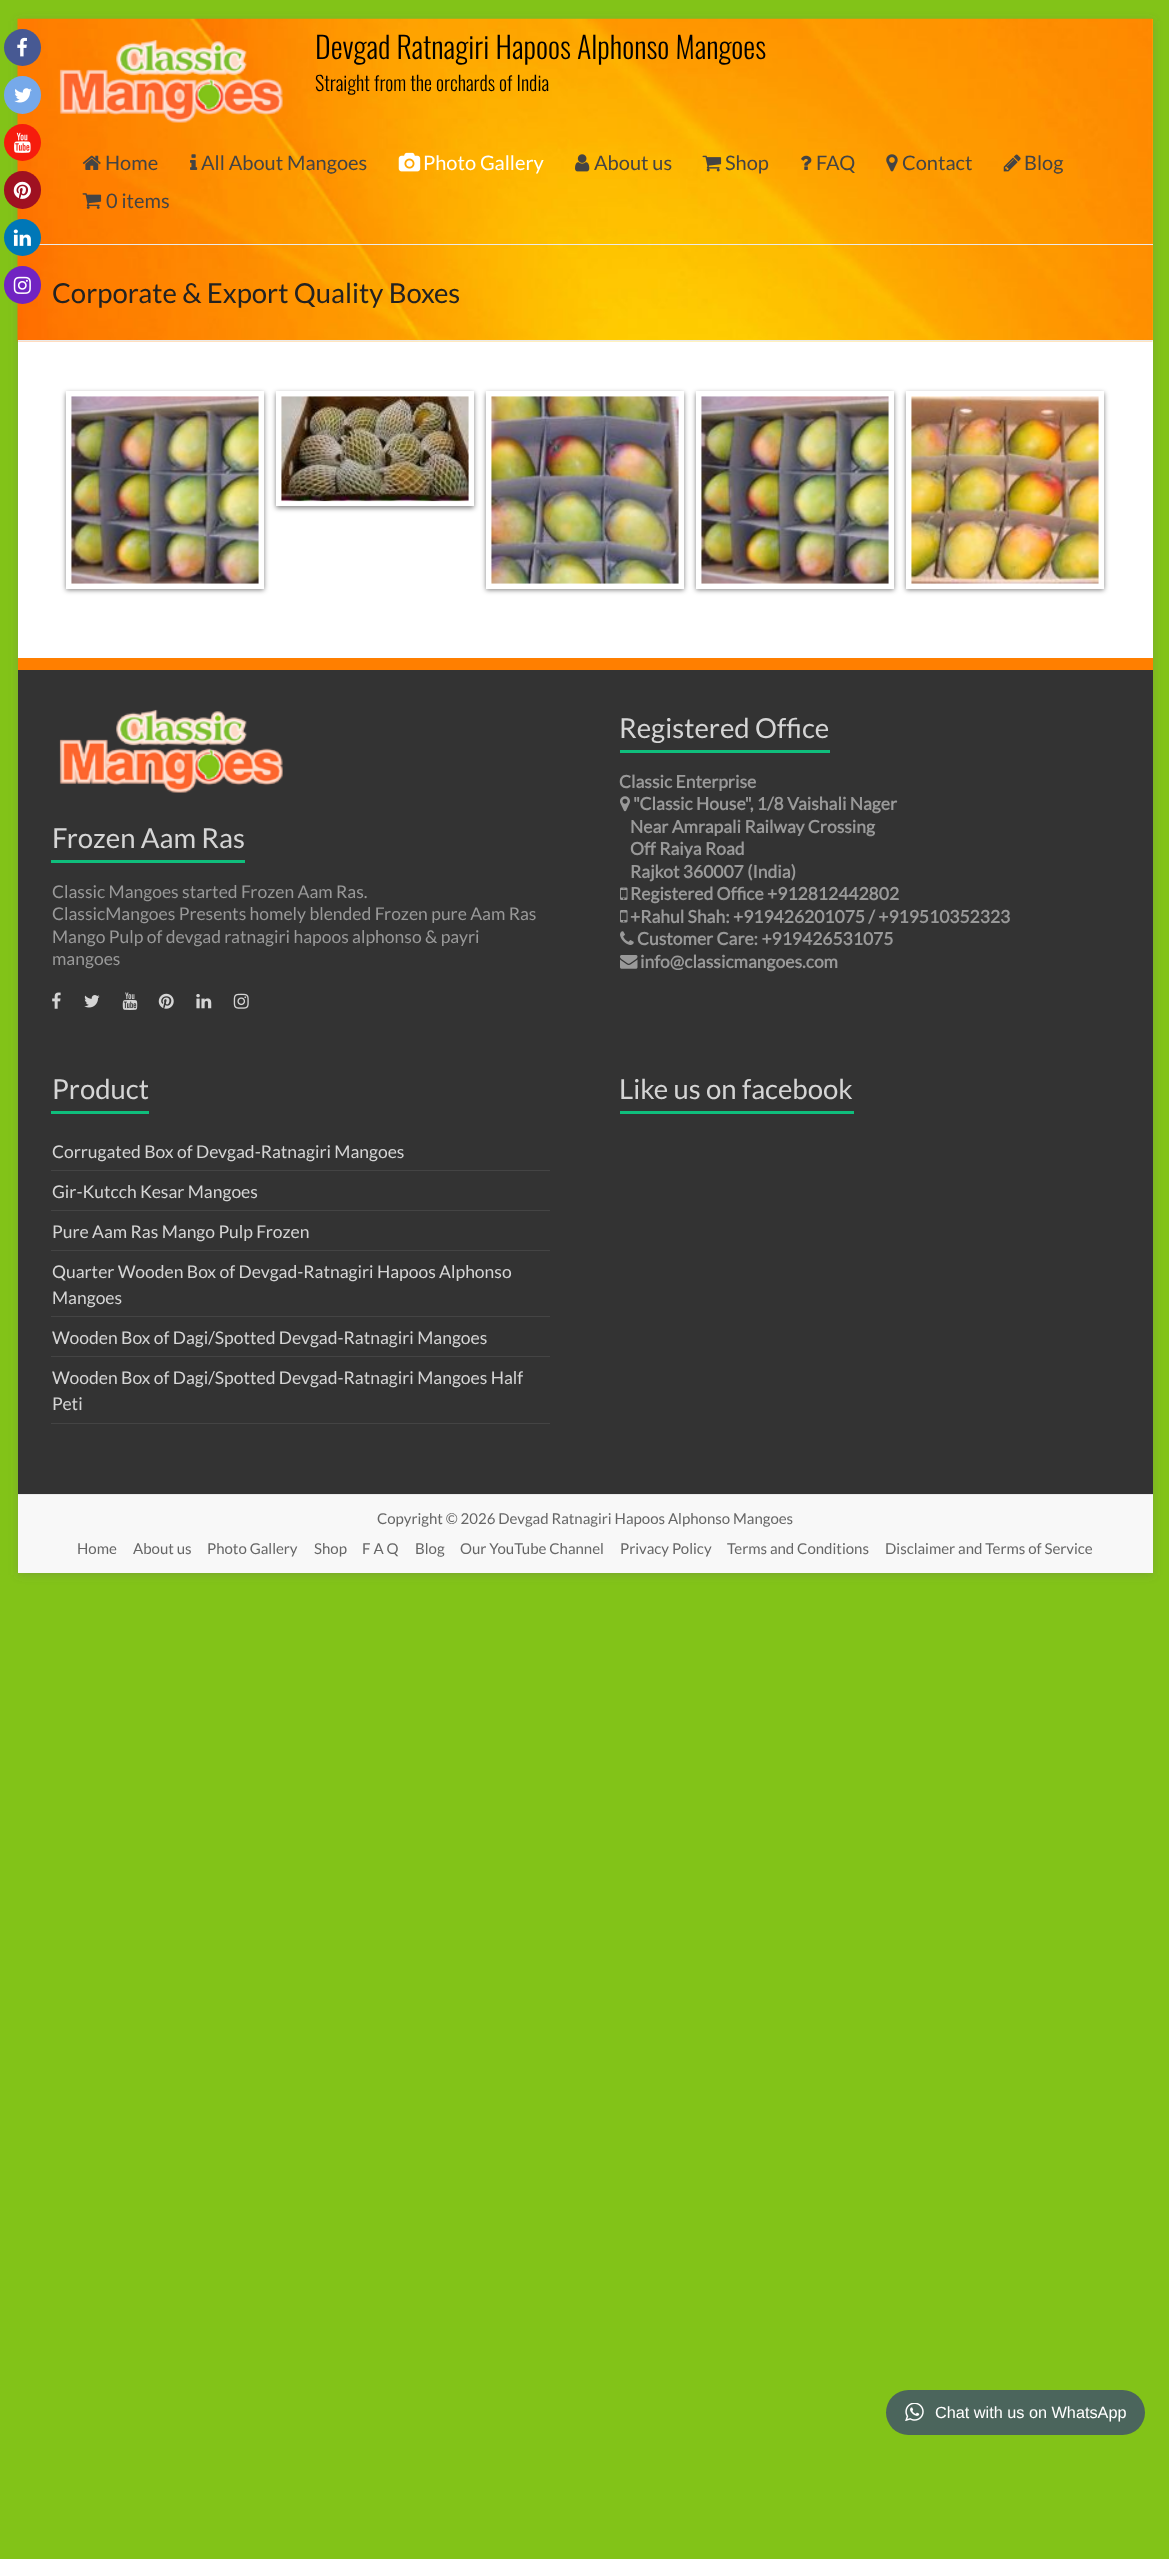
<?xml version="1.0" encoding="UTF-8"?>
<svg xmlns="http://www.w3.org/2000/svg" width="1169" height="2559">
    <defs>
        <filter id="blur1" x="-50%" y="-200%" width="200%" height="500%"><feGaussianBlur stdDeviation="4"/></filter>
        <filter id="blur2" x="-50%" y="-200%" width="200%" height="500%"><feGaussianBlur stdDeviation="2.5"/></filter>
    </defs>
    <rect width="100%" height="100%" fill="#82C318"/>
    <rect x="18" y="21" width="1135" height="1554" fill="#646464" fill-opacity="0.3" filter="url(#blur1)"/>
    <rect x="18" y="341" width="1135" height="317" fill="#FFFFFF"/>
    <rect x="1152" y="19" width="1" height="321" fill="#FFA500"/>
    <image x="17" y="18" width="1136" height="324" href="img_07.png"/>
    <circle cx="22.5" cy="47.5" r="18.5" fill="#475993"/>
    <image x="17" y="37" width="10" height="20" href="img_01.png"/>
    <rect x="4" y="76" width="37" height="38" rx="18.5" fill="#76A9EA"/>
    <image x="14" y="88" width="18" height="15" href="img_02.png"/>
    <circle cx="22.5" cy="142.5" r="18.5" fill="#F61C0D"/>
    <image x="14" y="132" width="17" height="21" href="img_03.png"/>
    <rect x="4" y="171" width="37" height="38" rx="18.5" fill="#9F1121"/>
    <image x="13" y="181" width="18" height="18" href="img_04.png"/>
    <rect x="39" y="244" width="1114" height="1" fill="#EAEAEA"/>
    <circle cx="22.5" cy="237.5" r="18.5" fill="#0077B7"/>
    <image x="13" y="229" width="18" height="17" href="img_05.png"/>
    <rect x="4" y="266" width="37" height="38" rx="18.5" fill="#7124C2"/>
    <image x="13" y="276" width="18" height="18" href="img_06.png"/>
    <image x="59" y="39" width="224" height="84" href="img_08.png"/>
    <text x="315" y="59" font-family="Oswald" font-size="30" font-weight="300" fill="#000000">Devgad Ratnagiri Hapoos Alphonso Mangoes</text>
    <text x="315" y="91" font-family="Oswald" font-size="20" font-weight="300" fill="#000000">Straight from the orchards of India</text>
    <image x="82" y="155" width="19" height="15" href="img_09.png"/>
    <text x="105" y="170" font-family="Lato" font-size="20" fill="#444444">Home</text>
    <image x="190" y="154" width="8" height="16" href="img_10.png"/>
    <text x="201" y="170" font-family="Lato" font-size="20" fill="#444444">All About Mangoes</text>
    <image x="398" y="152" width="23" height="20" href="img_11.png"/>
    <text x="423" y="170" font-family="Lato" font-size="20" fill="#FFFFFF">Photo Gallery</text>
    <image x="575" y="154" width="15" height="18" href="img_12.png"/>
    <text x="594" y="170" font-family="Lato" font-size="20" fill="#444444">About us</text>
    <image x="702" y="155" width="20" height="17" href="img_13.png"/>
    <text x="725" y="170" font-family="Lato" font-size="20" fill="#444444">Shop</text>
    <image x="801" y="155" width="11" height="15" href="img_14.png"/>
    <text x="816" y="170" font-family="Lato" font-size="20" fill="#444444">FAQ</text>
    <image x="886" y="154" width="12" height="18" href="img_15.png"/>
    <text x="902" y="170" font-family="Lato" font-size="20" fill="#444444">Contact</text>
    <image x="1003" y="154" width="18" height="18" href="img_16.png"/>
    <text x="1024" y="170" font-family="Lato" font-size="20" fill="#444444">Blog</text>
    <image x="82" y="193" width="20" height="16" href="img_17.png"/>
    <text x="106" y="208" font-family="Lato" font-size="20" fill="#444444">0 items</text>
    <rect x="18" y="340" width="1135" height="1" fill="#EAEAEA"/>
    <text x="52" y="303" font-family="Lato" font-size="27.5" fill="#222222">Corporate &amp; Export Quality Boxes</text>
    <rect x="66" y="393" width="198" height="197" fill="#000000" fill-opacity="0.5" filter="url(#blur2)"/>
    <rect x="66" y="391" width="198" height="198" fill="#FFFFFF"/>
    <image x="71" y="396" width="188" height="188" href="img_18.png"/>
    <rect x="276" y="393" width="198" height="115" fill="#000000" fill-opacity="0.5" filter="url(#blur2)"/>
    <rect x="276" y="391" width="198" height="115" fill="#FFFFFF"/>
    <image x="281" y="396" width="188" height="106" href="img_19.png"/>
    <rect x="486" y="393" width="198" height="197" fill="#000000" fill-opacity="0.5" filter="url(#blur2)"/>
    <rect x="486" y="391" width="198" height="198" fill="#FFFFFF"/>
    <image x="491" y="396" width="188" height="188" href="img_20.png"/>
    <rect x="696" y="393" width="198" height="197" fill="#000000" fill-opacity="0.5" filter="url(#blur2)"/>
    <rect x="696" y="391" width="198" height="198" fill="#FFFFFF"/>
    <image x="701" y="396" width="188" height="188" href="img_21.png"/>
    <rect x="906" y="393" width="198" height="197" fill="#000000" fill-opacity="0.5" filter="url(#blur2)"/>
    <rect x="906" y="391" width="198" height="198" fill="#FFFFFF"/>
    <image x="911" y="396" width="188" height="188" href="img_22.png"/>
    <rect x="18" y="670" width="1135" height="824" fill="#333333"/>
    <rect x="18" y="658" width="1135" height="12" fill="#FF7F00"/>
    <image x="59" y="709" width="224" height="84" href="img_23.png"/>
    <text x="52" y="848" font-family="Lato" font-size="27.5" fill="#D5D5D5">Frozen Aam Ras</text>
    <rect x="51" y="860" width="194" height="3" fill="#0FBE7C"/>
    <text font-family="Lato" font-size="17.5" fill="#999999">
        <tspan x="52" y="898">Classic Mangoes started Frozen Aam Ras.</tspan>
        <tspan x="52" y="920">ClassicMangoes Presents homely blended Frozen pure Aam Ras</tspan>
        <tspan x="52" y="943">Mango Pulp of devgad ratnagiri hapoos alphonso &amp; payri</tspan>
        <tspan x="52" y="965">mangoes</tspan>
    </text>
    <image x="52" y="992" width="9" height="17" href="img_24.png"/>
    <image x="84" y="995" width="16" height="13" href="img_25.png"/>
    <image x="122" y="992" width="16" height="18" href="img_26.png"/>
    <image x="158" y="993" width="16" height="16" href="img_27.png"/>
    <image x="196" y="994" width="16" height="15" href="img_28.png"/>
    <image x="233" y="993" width="16" height="16" href="img_29.png"/>
    <text x="619" y="738" font-family="Lato" font-size="27.5" fill="#D5D5D5">Registered Office</text>
    <rect x="620" y="750" width="210" height="3" fill="#0FBE7C"/>
    <text x="619" y="788" font-family="Lato" font-size="17.5" font-weight="700" fill="#999999">Classic Enterprise</text>
    <image x="620" y="796" width="10" height="16" href="img_30.png"/>
    <text x="633" y="810" font-family="Lato" font-size="17.5" font-weight="700" fill="#999999">"Classic House", 1/8 Vaishali Nager</text>
    <text font-family="Lato" font-size="17.5" font-weight="700" fill="#999999">
        <tspan x="630" y="833">Near Amrapali Railway Crossing</tspan>
        <tspan x="630" y="855">Off Raiya Road</tspan>
        <tspan x="630" y="878">Rajkot 360007 (India)</tspan>
    </text>
    <image x="620" y="887" width="8" height="13" href="img_31.png"/>
    <text x="630" y="900" font-family="Lato" font-size="17.5" font-weight="700" fill="#999999">Registered Office +912812442802</text>
    <image x="620" y="910" width="8" height="13" href="img_32.png"/>
    <text x="630" y="923" font-family="Lato" font-size="17.5" font-weight="700" fill="#999999">+Rahul Shah: +919426201075 / +919510352323</text>
    <image x="620" y="931" width="14" height="14" href="img_33.png"/>
    <text x="637" y="945" font-family="Lato" font-size="17.5" font-weight="700" fill="#999999">Customer Care: +919426531075</text>
    <image x="620" y="955" width="18" height="14" href="img_34.png"/>
    <text x="640" y="968" font-family="Lato" font-size="17.5" font-weight="700" fill="#999999">info@classicmangoes.com</text>
    <text x="52" y="1099" font-family="Lato" font-size="27.5" fill="#D5D5D5">Product</text>
    <rect x="51" y="1111" width="98" height="3" fill="#0FBE7C"/>
    <rect x="51" y="1170" width="499" height="1" fill="#444444"/>
    <text x="52" y="1158" font-family="Lato" font-size="17.5" fill="#D5D5D5">Corrugated Box of Devgad-Ratnagiri Mangoes</text>
    <rect x="51" y="1210" width="499" height="1" fill="#444444"/>
    <text x="52" y="1198" font-family="Lato" font-size="17.5" fill="#D5D5D5">Gir-Kutcch Kesar Mangoes</text>
    <rect x="51" y="1250" width="499" height="1" fill="#444444"/>
    <text x="52" y="1238" font-family="Lato" font-size="17.5" fill="#D5D5D5">Pure Aam Ras Mango Pulp Frozen</text>
    <rect x="51" y="1316" width="499" height="1" fill="#444444"/>
    <text font-family="Lato" font-size="17.5" fill="#D5D5D5">
        <tspan x="52" y="1278">Quarter Wooden Box of Devgad-Ratnagiri Hapoos Alphonso</tspan>
        <tspan x="52" y="1304">Mangoes</tspan>
    </text>
    <rect x="51" y="1356" width="499" height="1" fill="#444444"/>
    <text x="52" y="1344" font-family="Lato" font-size="17.5" fill="#D5D5D5">Wooden Box of Dagi/Spotted Devgad-Ratnagiri Mangoes</text>
    <rect x="51" y="1423" width="499" height="1" fill="#444444"/>
    <text font-family="Lato" font-size="17.5" fill="#D5D5D5">
        <tspan x="52" y="1384">Wooden Box of Dagi/Spotted Devgad-Ratnagiri Mangoes Half</tspan>
        <tspan x="52" y="1410">Peti</tspan>
    </text>
    <text x="619" y="1099" font-family="Lato" font-size="27.5" fill="#D5D5D5">Like us on facebook</text>
    <rect x="620" y="1111" width="234" height="3" fill="#0FBE7C"/>
    <rect x="18" y="1495" width="1135" height="78" fill="#F8F8F8"/>
    <rect x="18" y="1494" width="1135" height="1" fill="#EAEAEA"/>
    <text x="377" y="1524" font-family="Lato" font-size="15" fill="#666666">Copyright © 2026 Devgad Ratnagiri Hapoos Alphonso Mangoes</text>
    <text x="77" y="1554" font-family="Lato" font-size="15" fill="#666666">Home</text>
    <text x="133" y="1554" font-family="Lato" font-size="15" fill="#666666">About us</text>
    <text x="207" y="1554" font-family="Lato" font-size="15" fill="#666666">Photo Gallery</text>
    <text x="314" y="1554" font-family="Lato" font-size="15" fill="#666666">Shop</text>
    <text x="362" y="1554" font-family="Lato" font-size="15" fill="#666666">F A Q</text>
    <text x="415" y="1554" font-family="Lato" font-size="15" fill="#666666">Blog</text>
    <text x="460" y="1554" font-family="Lato" font-size="15" fill="#666666">Our YouTube Channel</text>
    <text x="620" y="1554" font-family="Lato" font-size="15" fill="#666666">Privacy Policy</text>
    <text x="727" y="1554" font-family="Lato" font-size="15" fill="#666666">Terms and Conditions</text>
    <text x="885" y="1554" font-family="Lato" font-size="15" fill="#666666">Disclaimer and Terms of Service</text>
    <rect x="886" y="2390" width="259" height="45" rx="22.5" fill="#4B655C"/>
    <image x="905" y="2403" width="19" height="18" href="img_35.png"/>
    <text x="935" y="2418" font-family="Liberation Sans" font-size="16.25" fill="#FFFFFF">Chat with us on WhatsApp</text>
</svg>
